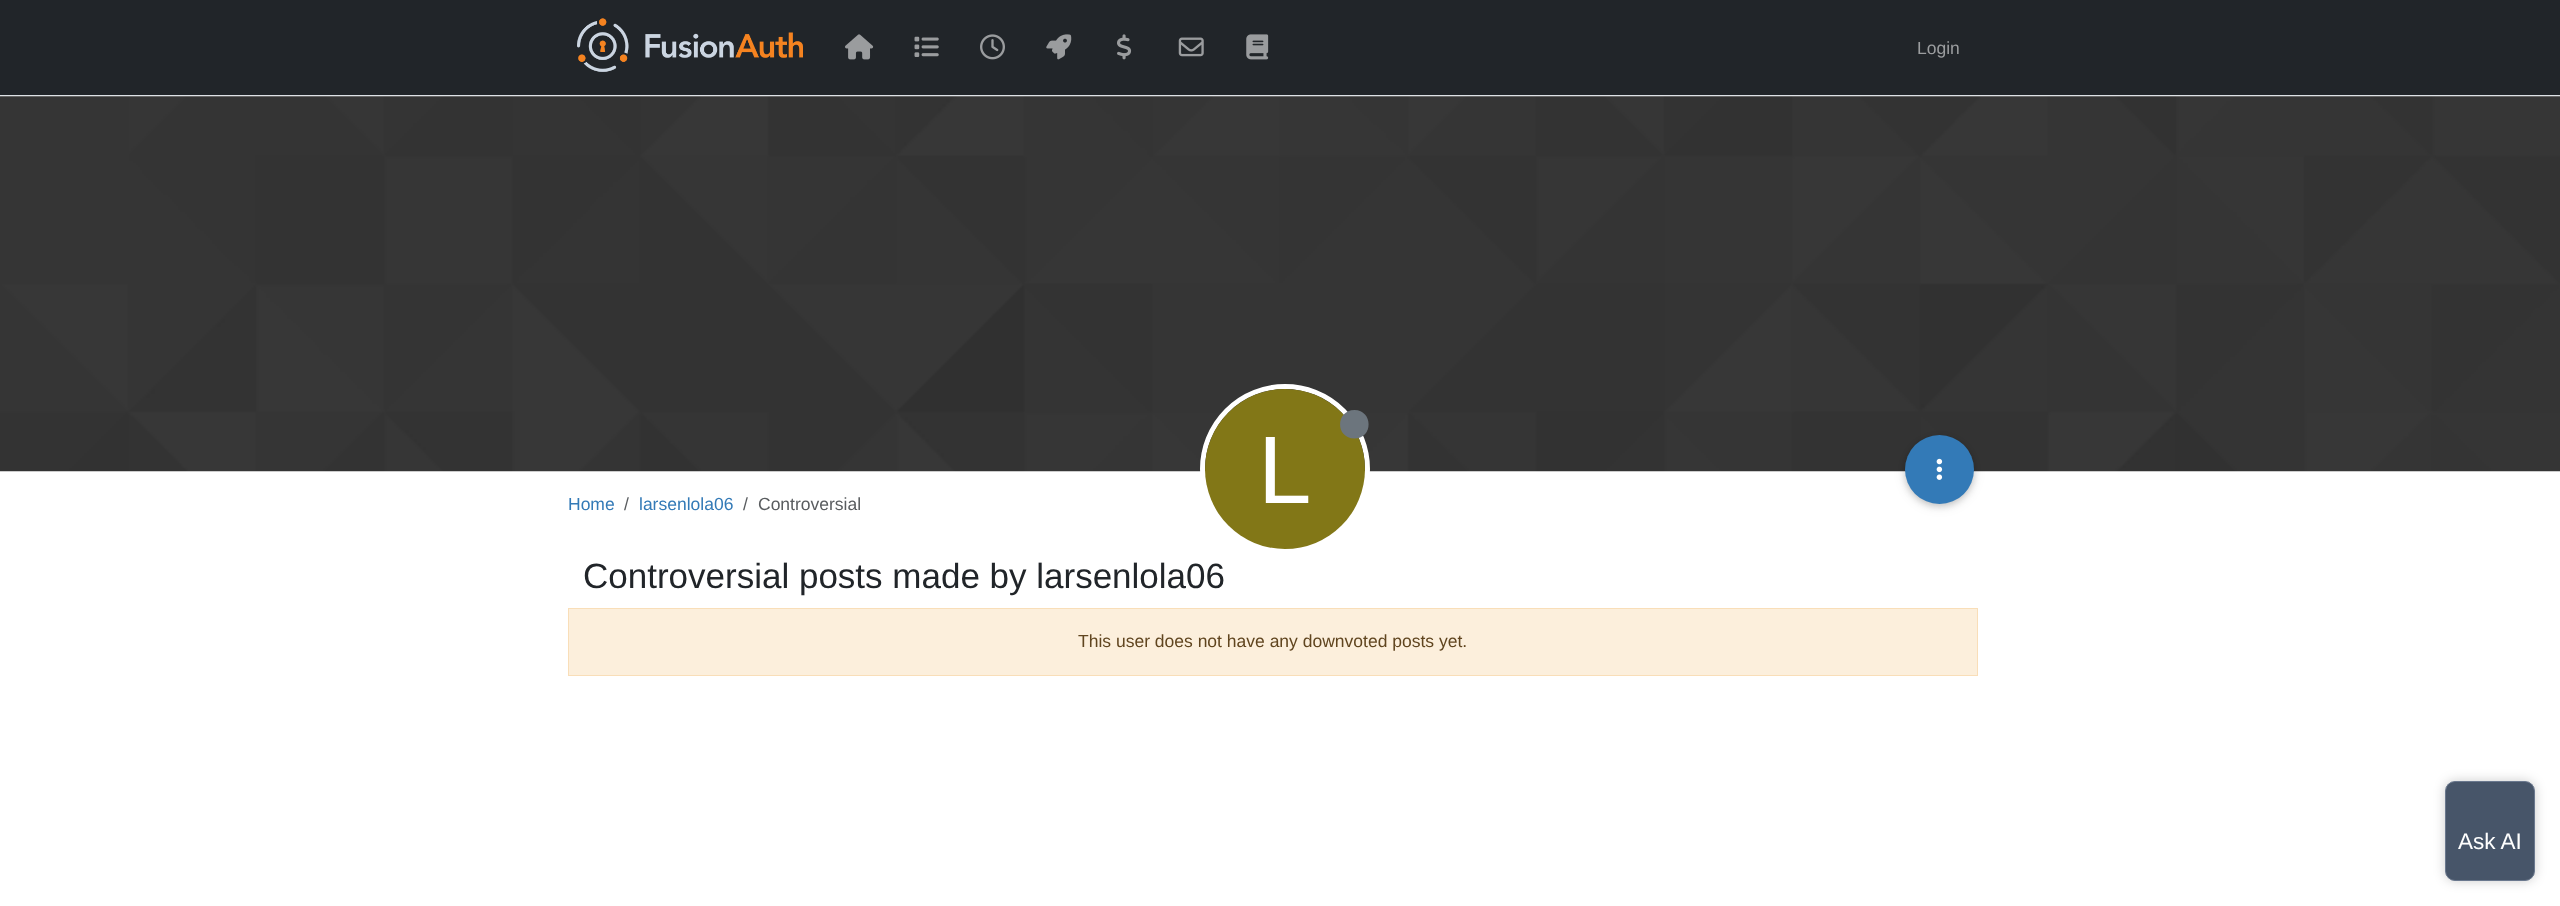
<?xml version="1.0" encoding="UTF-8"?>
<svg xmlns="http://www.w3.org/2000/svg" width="2560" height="906">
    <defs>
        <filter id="blur1" x="-50%" y="-200%" width="200%" height="500%"><feGaussianBlur stdDeviation="6"/></filter>
        <filter id="blur2" x="-50%" y="-200%" width="200%" height="500%"><feGaussianBlur stdDeviation="3"/></filter>
    </defs>
    <rect width="100%" height="100%" fill="#FFFFFF"/>
    <rect x="0" y="0" width="2560" height="95" fill="#212529"/>
    <rect x="0" y="95" width="2560" height="1" fill="#DEE2E6"/>
    <image x="577" y="18" width="226" height="54" href="img_01.png"/>
    <image x="845" y="34" width="29" height="26" href="img_02.png"/>
    <image x="914" y="36" width="25" height="21" href="img_03.png"/>
    <image x="980" y="34" width="25" height="26" href="img_04.png"/>
    <image x="1046" y="34" width="26" height="26" href="img_05.png"/>
    <image x="1117" y="34" width="15" height="26" href="img_06.png"/>
    <image x="1178" y="37" width="26" height="20" href="img_07.png"/>
    <image x="1246" y="34" width="23" height="26" href="img_08.png"/>
    <text x="1917" y="54" font-family="Liberation Sans" font-size="17.5" fill="#9B9D9F">Login</text>
    <text x="568" y="510" font-family="Liberation Sans" font-size="17.5" fill="#337AB7">Home</text>
    <text x="624" y="510" font-family="Liberation Sans" font-size="17.5" fill="#595C5F">/</text>
    <text x="639" y="510" font-family="Liberation Sans" font-size="17.5" fill="#337AB7">larsenlola06</text>
    <text x="743" y="510" font-family="Liberation Sans" font-size="17.5" fill="#595C5F">/</text>
    <text x="758" y="510" font-family="Liberation Sans" font-size="17.5" fill="#595C5F">Controversial</text>
    <image x="0" y="96" width="2560" height="376" href="img_09.png"/>
    <circle cx="1285" cy="469" r="82.5" fill="none" stroke="#FFFFFF" stroke-width="5"/>
    <circle cx="1285" cy="469" r="80" fill="#827717"/>
    <path d="M 1354.5 438.5 C 1373.5 438.5 1373 410 1354.5 410 C 1335.5 410 1335 438.5 1354.5 438.5 Z" fill="#6C757D"/>
    <text x="1258" y="503" font-family="Liberation Sans" font-size="96" fill="#FFFFFF">L</text>
    <rect x="1905" y="438" width="69" height="68" rx="34" fill="#000000" fill-opacity="0.12" filter="url(#blur1)"/>
    <rect x="1905" y="438" width="69" height="68" rx="34" fill="#000000" fill-opacity="0.16" filter="url(#blur2)"/>
    <circle cx="1939.5" cy="469.5" r="34.5" fill="#337AB7"/>
    <image x="1936" y="458" width="7" height="22" href="img_10.png"/>
    <text x="583" y="588" font-family="Liberation Sans" font-size="35" fill="#212529">Controversial posts made by larsenlola06</text>
    <rect x="568.5" y="608.5" width="1409" height="67" fill="#FCEFDC" stroke="#F9DEB8"/>
    <text x="1078" y="647" font-family="Liberation Sans" font-size="17.5" fill="#60451F">This user does not have any downvoted posts yet.</text>
    <rect x="2445" y="781" width="90" height="100" rx="10" fill="#000000" fill-opacity="0.2" filter="url(#blur1)"/>
    <rect x="2445.5" y="781.5" width="89" height="99" rx="9.5" fill="#475569" stroke="#6A788E"/>
    <text x="2458" y="849" font-family="Liberation Sans" font-size="22.5" fill="#FFFFFF">Ask AI</text>
</svg>
